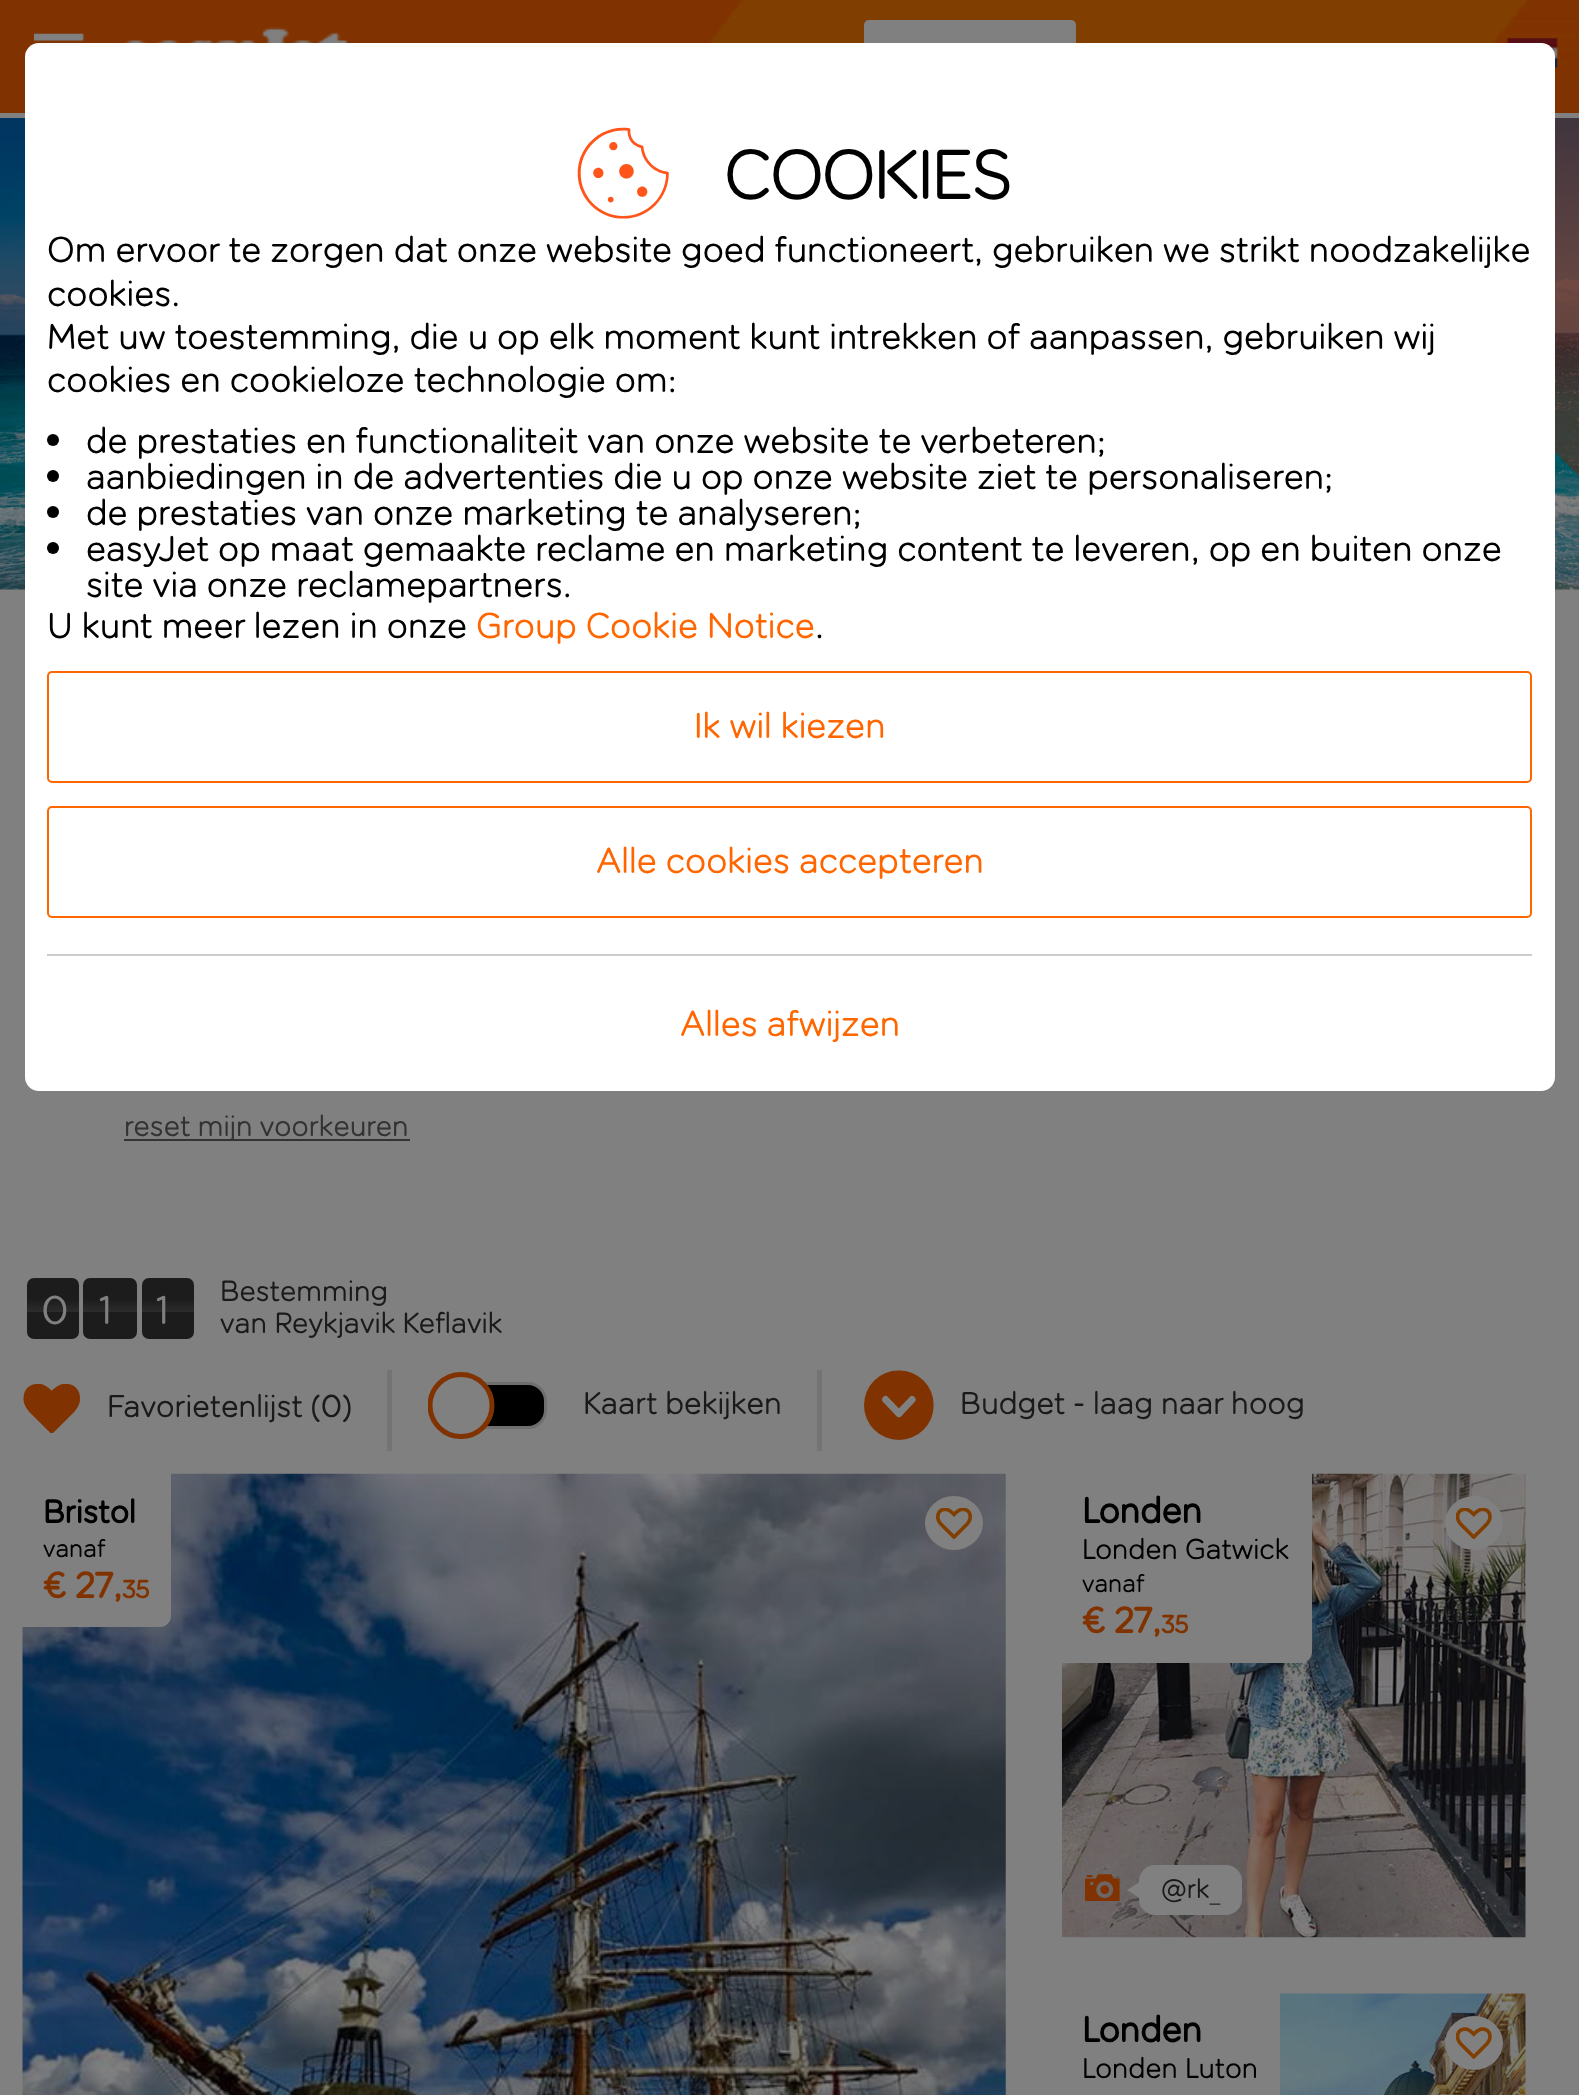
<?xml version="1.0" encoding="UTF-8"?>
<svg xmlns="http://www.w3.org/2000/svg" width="1579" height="2095">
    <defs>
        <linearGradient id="g1" gradientUnits="userSpaceOnUse" x1="53" y1="1278" x2="53" y2="1339"><stop offset="0" stop-color="#1C1C1D"/><stop offset="0.35" stop-color="#1C1C1D"/><stop offset="0.55" stop-color="#2C2C2D"/><stop offset="0.55" stop-color="#1C1C1D"/><stop offset="1" stop-color="#1C1C1D"/></linearGradient>
        <linearGradient id="g2" gradientUnits="userSpaceOnUse" x1="110" y1="1278" x2="110" y2="1339"><stop offset="0" stop-color="#1C1C1D"/><stop offset="0.35" stop-color="#1C1C1D"/><stop offset="0.55" stop-color="#2C2C2D"/><stop offset="0.55" stop-color="#1C1C1D"/><stop offset="1" stop-color="#1C1C1D"/></linearGradient>
        <linearGradient id="g3" gradientUnits="userSpaceOnUse" x1="168" y1="1278" x2="168" y2="1339"><stop offset="0" stop-color="#1C1C1D"/><stop offset="0.35" stop-color="#1C1C1D"/><stop offset="0.55" stop-color="#2C2C2D"/><stop offset="0.55" stop-color="#1C1C1D"/><stop offset="1" stop-color="#1C1C1D"/></linearGradient>
        <clipPath id="clip1"><rect x="428" y="1370" width="146" height="72"/></clipPath>
    </defs>
    <rect width="100%" height="100%" fill="#808080"/>
    <rect x="0" y="0" width="654" height="113" fill="#803300"/>
    <image x="0" y="118" width="1579" height="472" href="img_06.png"/>
    <path d="M 1220 117 H 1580 V 477 Z" fill="#74250F" fill-opacity="0.5"/>
    <rect x="1220" y="117" width="359" height="1" fill="#808080"/>
    <image x="654" y="0" width="925" height="113" href="img_02.png"/>
    <rect x="864" y="20" width="212" height="72" rx="5" fill="#808080"/>
    <image x="1506" y="38" width="52" height="30" href="img_05.png"/>
    <rect x="25" y="43" width="1530" height="1048" rx="14" fill="#FFFFFF"/>
    <image x="577" y="127" width="92" height="92" href="img_01.png"/>
    <text x="724" y="199" font-family="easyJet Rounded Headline" font-size="67.5" font-weight="700" fill="#000000">COOKIES</text>
    <text font-family="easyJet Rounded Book" font-size="36" fill="#000000">
        <tspan x="47" y="262">Om ervoor te zorgen dat onze website goed functioneert, gebruiken we strikt noodzakelijke</tspan>
        <tspan x="47" y="306">cookies.</tspan>
        <tspan x="47" y="349">Met uw toestemming, die u op elk moment kunt intrekken of aanpassen, gebruiken wij</tspan>
        <tspan x="47" y="392">cookies en cookieloze technologie om:</tspan>
    </text>
    <circle cx="53" cy="440" r="6" fill="#000000"/>
    <text x="86" y="453" font-family="easyJet Rounded Book" font-size="36" fill="#000000">de prestaties en functionaliteit van onze website te verbeteren;</text>
    <circle cx="53" cy="476" r="6" fill="#000000"/>
    <text x="86" y="489" font-family="easyJet Rounded Book" font-size="36" fill="#000000">aanbiedingen in de advertenties die u op onze website ziet te personaliseren;</text>
    <circle cx="53" cy="512" r="6" fill="#000000"/>
    <text x="86" y="525" font-family="easyJet Rounded Book" font-size="36" fill="#000000">de prestaties van onze marketing te analyseren;</text>
    <circle cx="53" cy="548" r="6" fill="#000000"/>
    <text font-family="easyJet Rounded Book" font-size="36" fill="#000000">
        <tspan x="86" y="561">easyJet op maat gemaakte reclame en marketing content te leveren, op en buiten onze</tspan>
        <tspan x="86" y="597">site via onze reclamepartners.</tspan>
    </text>
    <text x="47" y="638" font-family="easyJet Rounded Book" font-size="36" fill="#000000">U kunt meer lezen in onze</text>
    <text x="476" y="638" font-family="easyJet Rounded Book" font-size="36" fill="#FF6600">Group Cookie Notice</text>
    <text x="815" y="638" font-family="easyJet Rounded Book" font-size="36" fill="#000000">.</text>
    <rect x="48" y="672" width="1483" height="110" rx="4" fill="none" stroke="#FF6600" stroke-width="2"/>
    <text x="694" y="738" font-family="easyJet Rounded Book" font-size="36" fill="#FF6600">Ik wil kiezen</text>
    <rect x="48" y="807" width="1483" height="110" rx="4" fill="none" stroke="#FF6600" stroke-width="2"/>
    <text x="596" y="873" font-family="easyJet Rounded Book" font-size="36" fill="#FF6600">Alle cookies accepteren</text>
    <rect x="47" y="954" width="1485" height="2" fill="#CCCCCC"/>
    <text x="680" y="1036" font-family="easyJet Rounded Book" font-size="36" fill="#FF6600">Alles afwijzen</text>
    <image x="34" y="33" width="50" height="9" href="img_03.png"/>
    <image x="123" y="27" width="226" height="16" href="img_04.png"/>
    <rect x="124" y="1139" width="286" height="2" fill="#333333"/>
    <text x="124" y="1136" font-family="easyJet Rounded Book" font-size="29.25" fill="#333333">reset mijn voorkeuren</text>
    <rect x="27" y="1278" width="52" height="61" rx="7" fill="url(#g1)"/>
    <text x="42" y="1324" font-family="easyJet Rounded Book" font-size="40" fill="#808080">0</text>
    <rect x="83" y="1278" width="54" height="61" rx="7" fill="url(#g2)"/>
    <text x="99" y="1324" font-family="easyJet Rounded Book" font-size="40" fill="#808080">1</text>
    <rect x="142" y="1278" width="52" height="61" rx="7" fill="url(#g3)"/>
    <text x="156" y="1324" font-family="easyJet Rounded Book" font-size="40" fill="#808080">1</text>
    <text font-family="easyJet Rounded Book" font-size="29.25" fill="#1A1A1A">
        <tspan x="220" y="1301">Bestemming</tspan>
        <tspan x="220" y="1333">van Reykjavik Keflavik</tspan>
    </text>
    <image x="23" y="1384" width="58" height="49" href="img_07.png"/>
    <text x="107" y="1417" font-family="easyJet Rounded Book" font-size="31.5" fill="#1A1A1A">Favorietenlijst (0)</text>
    <rect x="387" y="1370" width="5" height="81" fill="#737475"/>
    <rect x="430.5" y="1383.5" width="115" height="44" rx="17.5" fill="#000000" stroke="#6E6E6E" stroke-width="3"/>
    <circle cx="461" cy="1405.5" r="31" fill="#808080"/>
    <g clip-path="url(#clip1)">
        <circle cx="461" cy="1405.5" r="31" fill="none" stroke="#803300" stroke-width="5"/>
    </g>
    <text x="583" y="1414" font-family="easyJet Rounded Book" font-size="31.5" fill="#1A1A1A">Kaart bekijken</text>
    <rect x="817" y="1370" width="5" height="81" fill="#737475"/>
    <image x="864" y="1370" width="70" height="70" href="img_08.png"/>
    <text x="960" y="1414" font-family="easyJet Rounded Book" font-size="31.5" fill="#1A1A1A">Budget - laag naar hoog</text>
    <image x="22" y="1473" width="984" height="622" href="img_09.png"/>
    <path d="M 20 1472 H 171 V 1616 C 171 1622 166 1627 160 1627 H 20 Z" fill="#808080"/>
    <text x="43" y="1523" font-family="easyJet Rounded Book" font-size="32.5" font-weight="700" fill="#000000">Bristol</text>
    <text x="43" y="1557" font-family="easyJet Rounded Book" font-size="25" fill="#000000">vanaf</text>
    <text x="43" y="1598" font-family="easyJet Rounded Book" font-size="36" font-weight="700" fill="#803300">€ 27,</text>
    <text x="122" y="1598" font-family="easyJet Rounded Book" font-size="25" font-weight="700" fill="#803300">35</text>
    <ellipse cx="954" cy="1523" rx="29" ry="27" fill="#808080"/>
    <image x="936" y="1508" width="36" height="31" href="img_10.png"/>
    <image x="1062" y="1473" width="464" height="465" href="img_11.png"/>
    <path d="M 1060 1472 H 1312 V 1652 C 1312 1658 1307 1663 1301 1663 H 1060 Z" fill="#808080"/>
    <text x="1082" y="1523" font-family="easyJet Rounded Book" font-size="36" font-weight="700" fill="#000000">Londen</text>
    <text x="1082" y="1559" font-family="easyJet Rounded Book" font-size="28.75" fill="#000000">Londen Gatwick</text>
    <text x="1082" y="1592" font-family="easyJet Rounded Book" font-size="25" fill="#000000">vanaf</text>
    <text x="1082" y="1633" font-family="easyJet Rounded Book" font-size="36" font-weight="700" fill="#803300">€ 27,</text>
    <text x="1161" y="1633" font-family="easyJet Rounded Book" font-size="25" font-weight="700" fill="#803300">35</text>
    <ellipse cx="1474" cy="1523" rx="29" ry="27" fill="#808080"/>
    <image x="1456" y="1508" width="36" height="31" href="img_12.png"/>
    <image x="1085" y="1874" width="35" height="27" href="img_13.png"/>
    <rect x="1139" y="1865" width="103" height="50" rx="16" fill="#808080"/>
    <path d="M 1141 1881 V 1899 L 1127 1890 Z" fill="#808080"/>
    <text x="1161" y="1898" font-family="easyJet Rounded Book" font-size="27" fill="#1A1A1A">@rk_</text>
    <text x="1082" y="2042" font-family="easyJet Rounded Book" font-size="36" font-weight="700" fill="#000000">Londen</text>
    <text x="1082" y="2078" font-family="easyJet Rounded Book" font-size="28.75" fill="#000000">Londen Luton</text>
    <image x="1280" y="1993" width="246" height="102" href="img_14.png"/>
    <ellipse cx="1474" cy="2043" rx="29" ry="27" fill="#808080"/>
    <image x="1456" y="2027" width="36" height="32" href="img_15.png"/>
</svg>
